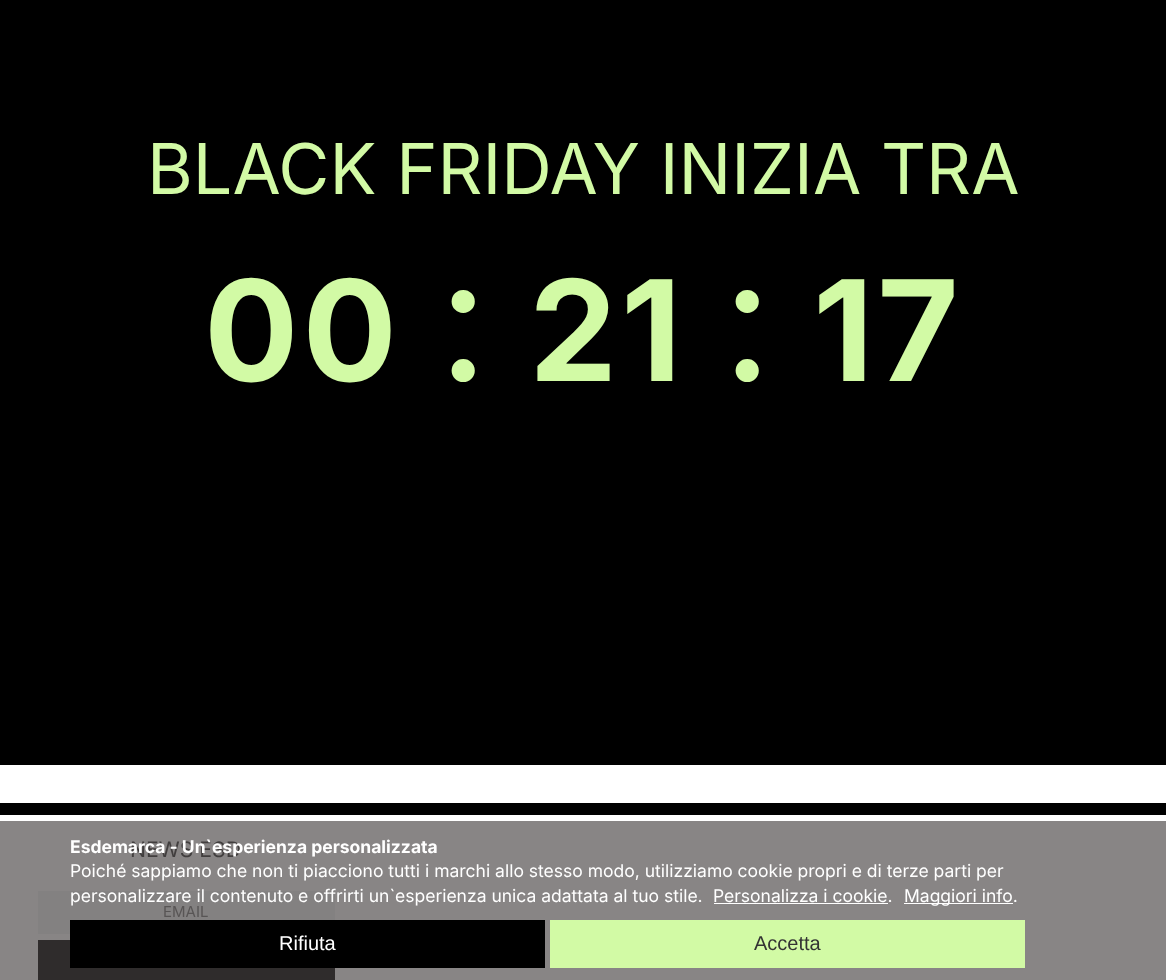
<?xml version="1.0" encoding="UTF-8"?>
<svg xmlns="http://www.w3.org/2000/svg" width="1166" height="980">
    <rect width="100%" height="100%" fill="#FFFFFF"/>
    <rect x="0" y="821" width="1166" height="159" fill="#888585"/>
    <rect x="0" y="0" width="1166" height="765" fill="#000000"/>
    <text x="147" y="194" font-family="Inter" font-size="70" fill="#D2FAA5">BLACK FRIDAY INIZIA TRA</text>
    <text x="204" y="381" font-family="Inter" font-size="140" font-weight="700" letter-spacing="4" fill="#D2FAA5">00</text>
    <text x="438" y="381" font-family="Inter" font-size="175" letter-spacing="4" fill="#D2FAA5">:</text>
    <text x="529" y="381" font-family="Inter" font-size="140" font-weight="700" letter-spacing="4" fill="#D2FAA5">21</text>
    <text x="722" y="381" font-family="Inter" font-size="175" letter-spacing="4" fill="#D2FAA5">:</text>
    <text x="813" y="381" font-family="Inter" font-size="140" font-weight="700" letter-spacing="4" fill="#D2FAA5">17</text>
    <rect x="0" y="803" width="1166" height="12" fill="#000000"/>
    <text x="130" y="857" font-family="Inter" font-size="21.25" fill="#413E3E">NEWS ESD</text>
    <text x="70" y="853" font-family="Inter" font-size="17.5" font-weight="700" fill="#FFFFFF">Esdemarca - Un`esperienza personalizzata</text>
    <text x="70" y="877" font-family="Inter" font-size="17.5" fill="#FFFFFF">Poiché sappiamo che non ti piacciono tutti i marchi allo stesso modo, utilizziamo cookie propri e di terze parti per</text>
    <rect x="38" y="891" width="297" height="43" fill="#838181"/>
    <text x="70" y="902" font-family="Inter" font-size="17.5" fill="#FFFFFF">personalizzare il contenuto e offrirti un`esperienza unica adattata al tuo stile.</text>
    <text x="713" y="902" font-family="Inter" font-size="17.5" fill="#FFFFFF">Personalizza i cookie.</text>
    <rect x="714" y="903" width="174" height="1" fill="#FFFFFF"/>
    <rect x="904" y="903" width="109" height="1" fill="#FFFFFF"/>
    <text x="904" y="902" font-family="Inter" font-size="17.5" fill="#FFFFFF">Maggiori info.</text>
    <rect x="38" y="940" width="297" height="40" fill="#2F2C2C"/>
    <rect x="70" y="920" width="475" height="48" fill="#000000"/>
    <text x="279" y="950" font-family="Liberation Sans" font-size="20" fill="#FFFFFF">Rifiuta</text>
    <rect x="550" y="920" width="475" height="48" fill="#D2FAA5"/>
    <text x="754" y="950" font-family="Liberation Sans" font-size="20" fill="#333333">Accetta</text>
    <text x="163" y="917" font-family="Inter" font-size="15" fill="#585555">EMAIL</text>
</svg>
